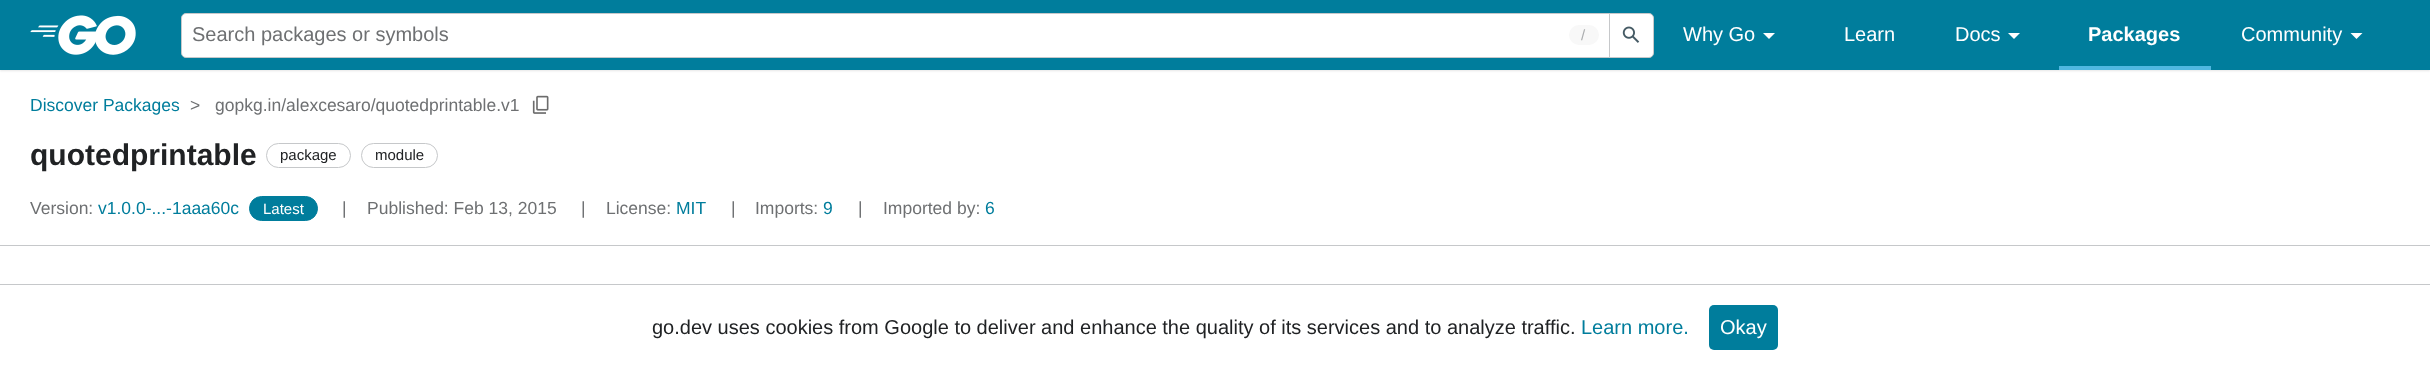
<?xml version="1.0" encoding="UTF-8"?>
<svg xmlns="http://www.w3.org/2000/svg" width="2430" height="369">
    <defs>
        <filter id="blur1" x="-50%" y="-200%" width="200%" height="500%"><feGaussianBlur stdDeviation="1"/></filter>
    </defs>
    <rect width="100%" height="100%" fill="#FFFFFF"/>
    <rect x="0" y="1" width="2430" height="70" fill="#ABABAB" fill-opacity="0.3" filter="url(#blur1)"/>
    <rect x="0" y="0" width="2430" height="70" fill="#007D9C"/>
    <image x="30" y="15" width="106" height="40" href="img_01.png"/>
    <path d="M 186 13.5 H 1609.5 V 57.5 H 186 C 183.5 57.5 181.5 55.5 181.5 53 V 18 C 181.5 15.5 183.5 13.5 186 13.5 Z" fill="#FFFFFF" stroke="#C6C8CA"/>
    <text x="192" y="41" font-family="Liberation Sans" font-size="20" fill="#6E7072">Search packages or symbols</text>
    <rect x="1569" y="25" width="30" height="20" rx="10" fill="#F8F8F8"/>
    <text x="1581" y="40" font-family="Liberation Sans" font-size="15" fill="#AAACAE">/</text>
    <path d="M 1609.5 13.5 H 1649 C 1651.5 13.5 1653.5 15.5 1653.5 18 V 53 C 1653.5 55.5 1651.5 57.5 1649 57.5 H 1609.5 Z" fill="#FFFFFF" stroke="#C6C8CA"/>
    <image x="1622" y="26" width="18" height="17" href="img_02.png"/>
    <text x="1683" y="41" font-family="Liberation Sans" font-size="20" fill="#FFFFFF">Why Go</text>
    <path d="M 1763 33 L 1769 39 L 1775 33 Z" fill="#FFFFFF"/>
    <text x="1844" y="41" font-family="Liberation Sans" font-size="20" fill="#FFFFFF">Learn</text>
    <text x="1955" y="41" font-family="Liberation Sans" font-size="20" fill="#FFFFFF">Docs</text>
    <path d="M 2008 33 L 2014 39 L 2020 33 Z" fill="#FFFFFF"/>
    <rect x="2059" y="66" width="152" height="4" fill="#50B7E0"/>
    <text x="2088" y="41" font-family="Liberation Sans" font-size="20" font-weight="700" fill="#FFFFFF">Packages</text>
    <text x="2241" y="41" font-family="Liberation Sans" font-size="20" fill="#FFFFFF">Community</text>
    <path d="M 2350.5 33 L 2356.5 39 L 2362.5 33 Z" fill="#FFFFFF"/>
    <rect x="0" y="245" width="2430" height="1" fill="#C6C8CA"/>
    <text x="30" y="111" font-family="Liberation Sans" font-size="17.5" fill="#007D9C">Discover Packages</text>
    <text x="190" y="111" font-family="Liberation Sans" font-size="17.5" fill="#6E7072">&gt;</text>
    <text x="215" y="111" font-family="Liberation Sans" font-size="17.5" fill="#6E7072">gopkg.in/alexcesaro/quotedprintable.v1</text>
    <image x="532" y="95" width="17" height="19" href="img_03.png"/>
    <text x="30" y="165" font-family="Liberation Sans" font-size="30" font-weight="700" fill="#202224">quotedprintable</text>
    <rect x="266.5" y="143.5" width="84" height="24" rx="12" fill="none" stroke="#C6C8CA"/>
    <text x="280" y="160" font-family="Liberation Sans" font-size="15" fill="#202224">package</text>
    <rect x="361.5" y="143.5" width="76" height="24" rx="12" fill="none" stroke="#C6C8CA"/>
    <text x="375" y="160" font-family="Liberation Sans" font-size="15" fill="#202224">module</text>
    <text x="30" y="214" font-family="Liberation Sans" font-size="17.5" fill="#6E7072">Version:</text>
    <text x="98" y="214" font-family="Liberation Sans" font-size="17.5" fill="#007D9C">v1.0.0-...-1aaa60c</text>
    <rect x="249.5" y="196.5" width="68" height="24" rx="12" fill="#007D9C" stroke="#007D9C"/>
    <text x="263" y="214" font-family="Liberation Sans" font-size="15" fill="#FFFFFF">Latest</text>
    <text x="342" y="214" font-family="Liberation Sans" font-size="17.5" fill="#6E7072">|</text>
    <text x="367" y="214" font-family="Liberation Sans" font-size="17.5" fill="#6E7072">Published: Feb 13, 2015</text>
    <text x="581" y="214" font-family="Liberation Sans" font-size="17.5" fill="#6E7072">|</text>
    <text x="606" y="214" font-family="Liberation Sans" font-size="17.5" fill="#6E7072">License:</text>
    <text x="676" y="214" font-family="Liberation Sans" font-size="17.5" fill="#007D9C">MIT</text>
    <text x="731" y="214" font-family="Liberation Sans" font-size="17.5" fill="#6E7072">|</text>
    <text x="755" y="214" font-family="Liberation Sans" font-size="17.5" fill="#6E7072">Imports:</text>
    <text x="823" y="214" font-family="Liberation Sans" font-size="17.5" fill="#007D9C">9</text>
    <text x="858" y="214" font-family="Liberation Sans" font-size="17.5" fill="#6E7072">|</text>
    <text x="883" y="214" font-family="Liberation Sans" font-size="17.5" fill="#6E7072">Imported by:</text>
    <text x="985" y="214" font-family="Liberation Sans" font-size="17.5" fill="#007D9C">6</text>
    <rect x="0" y="284" width="2430" height="1" fill="#C6C8CA"/>
    <text x="652" y="334" font-family="Liberation Sans" font-size="20" fill="#202224">go.dev uses cookies from Google to deliver and enhance the quality of its services and to analyze traffic.</text>
    <text x="1581" y="334" font-family="Liberation Sans" font-size="20" fill="#007D9C">Learn more.</text>
    <rect x="1709" y="305" width="69" height="45" rx="5" fill="#007D9C"/>
    <text x="1720" y="334" font-family="Liberation Sans" font-size="20" fill="#FFFFFF">Okay</text>
</svg>
